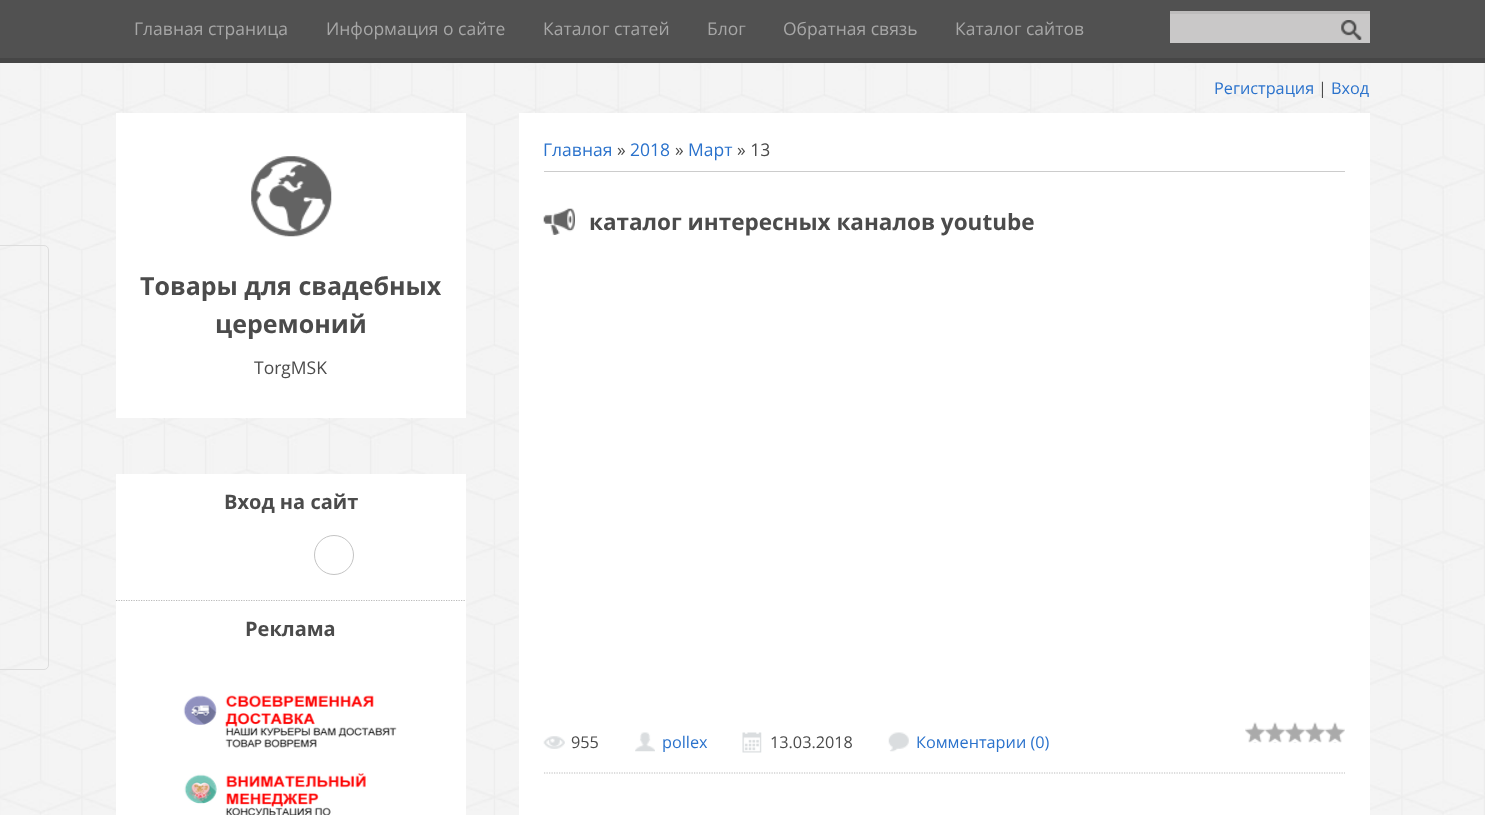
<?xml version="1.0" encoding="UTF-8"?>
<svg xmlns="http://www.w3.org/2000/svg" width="1485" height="815">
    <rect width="100%" height="100%" fill="#FFFFFF"/>
    <image x="0" y="63" width="1485" height="752" href="img_01.png"/>
    <rect x="0" y="0" width="1485" height="58" fill="#515151"/>
    <rect x="0" y="58" width="1485" height="5" fill="#464646"/>
    <text x="134" y="35" font-family="Open Sans" font-size="17.5" fill="#A7A7A7">Главная страница</text>
    <text x="326" y="35" font-family="Open Sans" font-size="17.5" fill="#A7A7A7">Информация о сайте</text>
    <text x="543" y="35" font-family="Open Sans" font-size="17.5" fill="#A7A7A7">Каталог статей</text>
    <text x="707" y="35" font-family="Open Sans" font-size="17.5" fill="#A7A7A7">Блог</text>
    <text x="783" y="35" font-family="Open Sans" font-size="17.5" fill="#A7A7A7">Обратная связь</text>
    <text x="955" y="35" font-family="Open Sans" font-size="17.5" fill="#A7A7A7">Каталог сайтов</text>
    <rect x="1170" y="14" width="200" height="29" fill="#C9C8C8"/>
    <rect x="1170" y="11" width="200" height="3" fill="#BDBCBC"/>
    <image x="1341" y="20" width="21" height="20" href="img_02.png"/>
    <text x="1214" y="94" font-family="Open Sans" font-size="16.25" fill="#2A72CC">Регистрация</text>
    <text x="1318" y="94" font-family="Open Sans" font-size="16.25" fill="#4B4B4B">|</text>
    <text x="1331" y="94" font-family="Open Sans" font-size="16.25" fill="#2A72CC">Вход</text>
    <rect x="-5.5" y="245.5" width="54" height="424" rx="4.5" fill="none" stroke="#DDDDDD"/>
    <rect x="116" y="113" width="350" height="305" fill="#FFFFFF"/>
    <image x="251" y="156" width="81" height="81" href="img_03.png"/>
    <text x="140" y="295" font-family="Open Sans" font-size="25" font-weight="700" fill="#4B4B4B">Товары для свадебных</text>
    <text x="215" y="333" font-family="Open Sans" font-size="25" font-weight="700" fill="#4B4B4B">церемоний</text>
    <text x="254" y="374" font-family="Open Sans" font-size="17.5" fill="#4B4B4B">TorgMSK</text>
    <rect x="519" y="113" width="851" height="702" fill="#FFFFFF"/>
    <text x="543" y="156" font-family="Open Sans" font-size="17.5" fill="#2A72CC">Главная</text>
    <text x="617" y="156" font-family="Open Sans" font-size="17.5" fill="#4B4B4B">»</text>
    <text x="630" y="156" font-family="Open Sans" font-size="17.5" fill="#2A72CC">2018</text>
    <text x="675" y="156" font-family="Open Sans" font-size="17.5" fill="#4B4B4B">»</text>
    <text x="688" y="156" font-family="Open Sans" font-size="17.5" fill="#2A72CC">Март</text>
    <text x="737" y="156" font-family="Open Sans" font-size="17.5" fill="#4B4B4B">» 13</text>
    <rect x="544" y="171" width="801" height="1" fill="#CCCCCC"/>
    <path d="M 544 773 H 1345" fill="none" stroke="#BBBBBB" stroke-width="1.2" stroke-dasharray="1.25 1.25"/>
    <image x="543" y="208" width="32" height="27" href="img_04.png"/>
    <text x="589" y="230" font-family="Open Sans" font-size="22.5" font-weight="700" fill="#4B4B4B">каталог интересных каналов youtube</text>
    <image x="543" y="736" width="22" height="13" href="img_05.png"/>
    <text x="571" y="748" font-family="Open Sans" font-size="16.25" fill="#4B4B4B">955</text>
    <image x="635" y="732" width="20" height="20" href="img_06.png"/>
    <text x="662" y="748" font-family="Open Sans" font-size="16.25" fill="#2A72CC">pollex</text>
    <image x="742" y="732" width="20" height="21" href="img_07.png"/>
    <text x="770" y="748" font-family="Open Sans" font-size="16.25" fill="#4B4B4B">13.03.2018</text>
    <image x="888" y="732" width="21" height="20" href="img_08.png"/>
    <text x="916" y="748" font-family="Open Sans" font-size="16.25" fill="#2A72CC">Комментарии (0)</text>
    <image x="1245" y="722" width="100" height="21" href="img_09.png"/>
    <rect x="116" y="474" width="350" height="341" fill="#FFFFFF"/>
    <path d="M 116 600.5 H 466" fill="none" stroke="#BBBBBB" stroke-width="1.2" stroke-dasharray="1.25 1.25"/>
    <text x="224" y="509" font-family="Open Sans" font-size="20" font-weight="700" fill="#4B4B4B">Вход на сайт</text>
    <circle cx="334" cy="555" r="19.5" fill="none" stroke="#C4C4C4"/>
    <text x="245" y="636" font-family="Open Sans" font-size="20" font-weight="700" fill="#4B4B4B">Реклама</text>
    <image x="183" y="695" width="214" height="120" href="img_10.png"/>
</svg>
